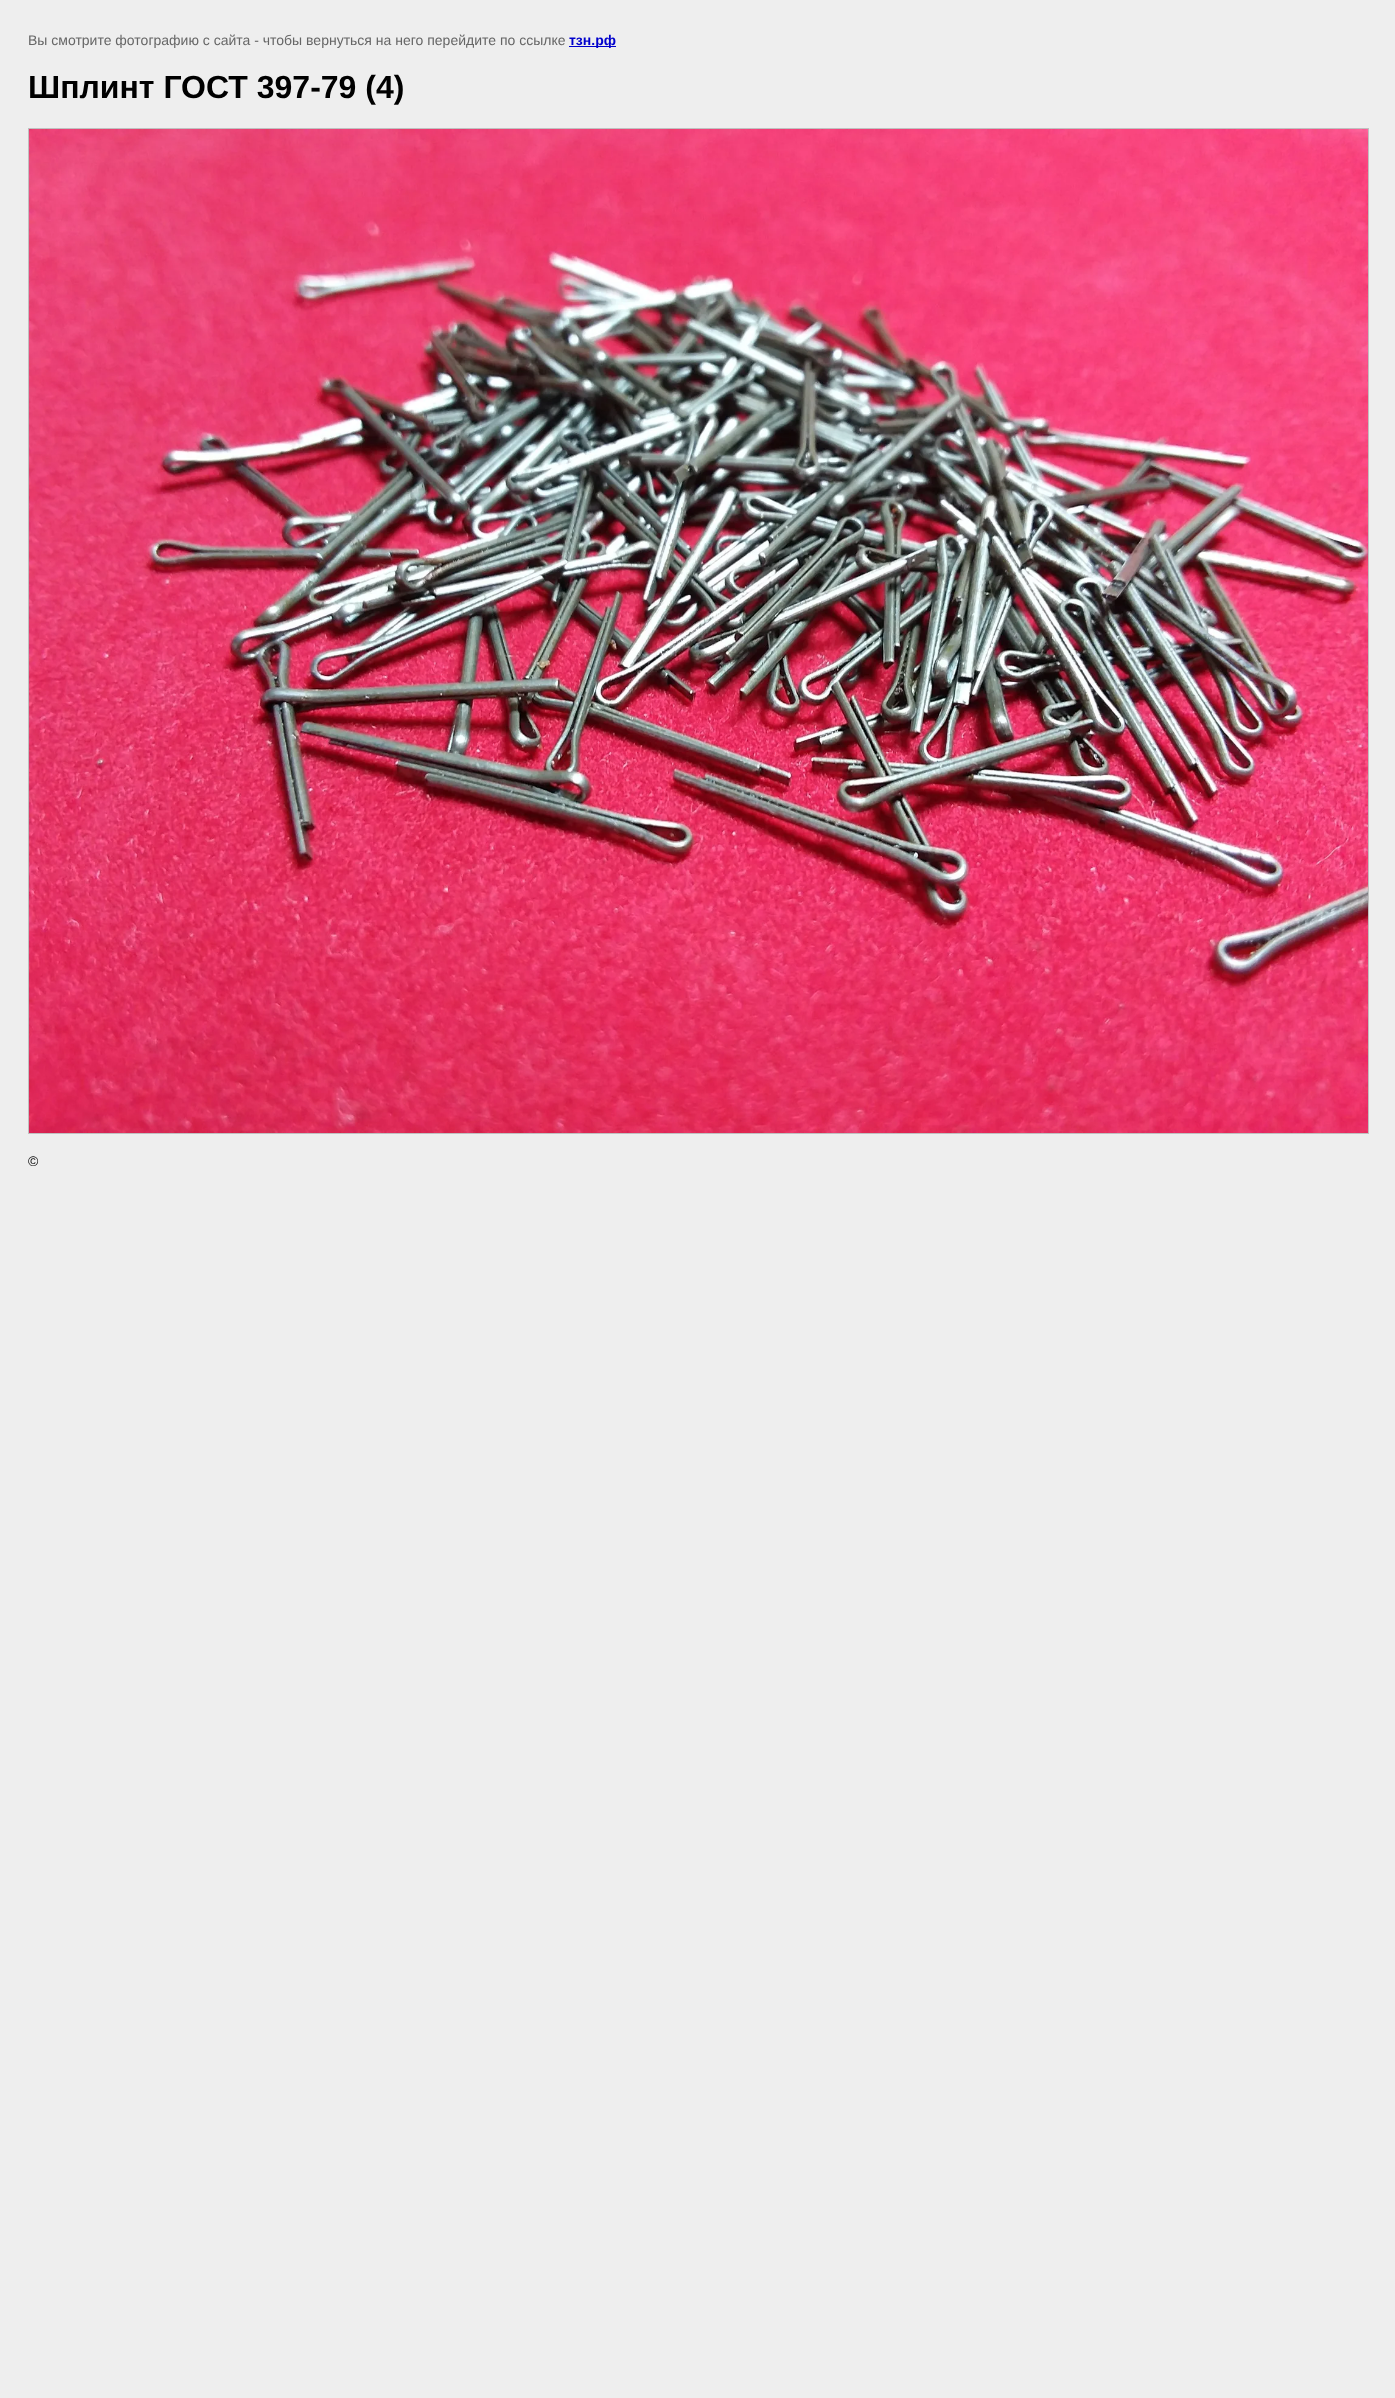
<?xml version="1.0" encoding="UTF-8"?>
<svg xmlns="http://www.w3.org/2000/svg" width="1395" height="2398">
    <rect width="100%" height="100%" fill="#EEEEEE"/>
    <text x="28" y="45" font-family="Liberation Sans" font-size="14" fill="#666666">Вы смотрите фотографию с сайта - чтобы вернуться на него перейдите по ссылке</text>
    <rect x="569" y="46" width="47" height="1" fill="#0000CC"/>
    <text x="569" y="45" font-family="Liberation Sans" font-size="14" font-weight="700" fill="#0000CC">тзн.рф</text>
    <text x="28" y="98" font-family="Liberation Sans" font-size="32" font-weight="700" fill="#000000">Шплинт ГОСТ 397-79 (4)</text>
    <rect x="28.5" y="128.5" width="1340" height="1005" fill="none" stroke="#C0C0C0"/>
    <image x="29" y="129" width="1339" height="1004" href="img_01.png"/>
    <text x="28" y="1166" font-family="Liberation Sans" font-size="14" fill="#000000">©</text>
</svg>
